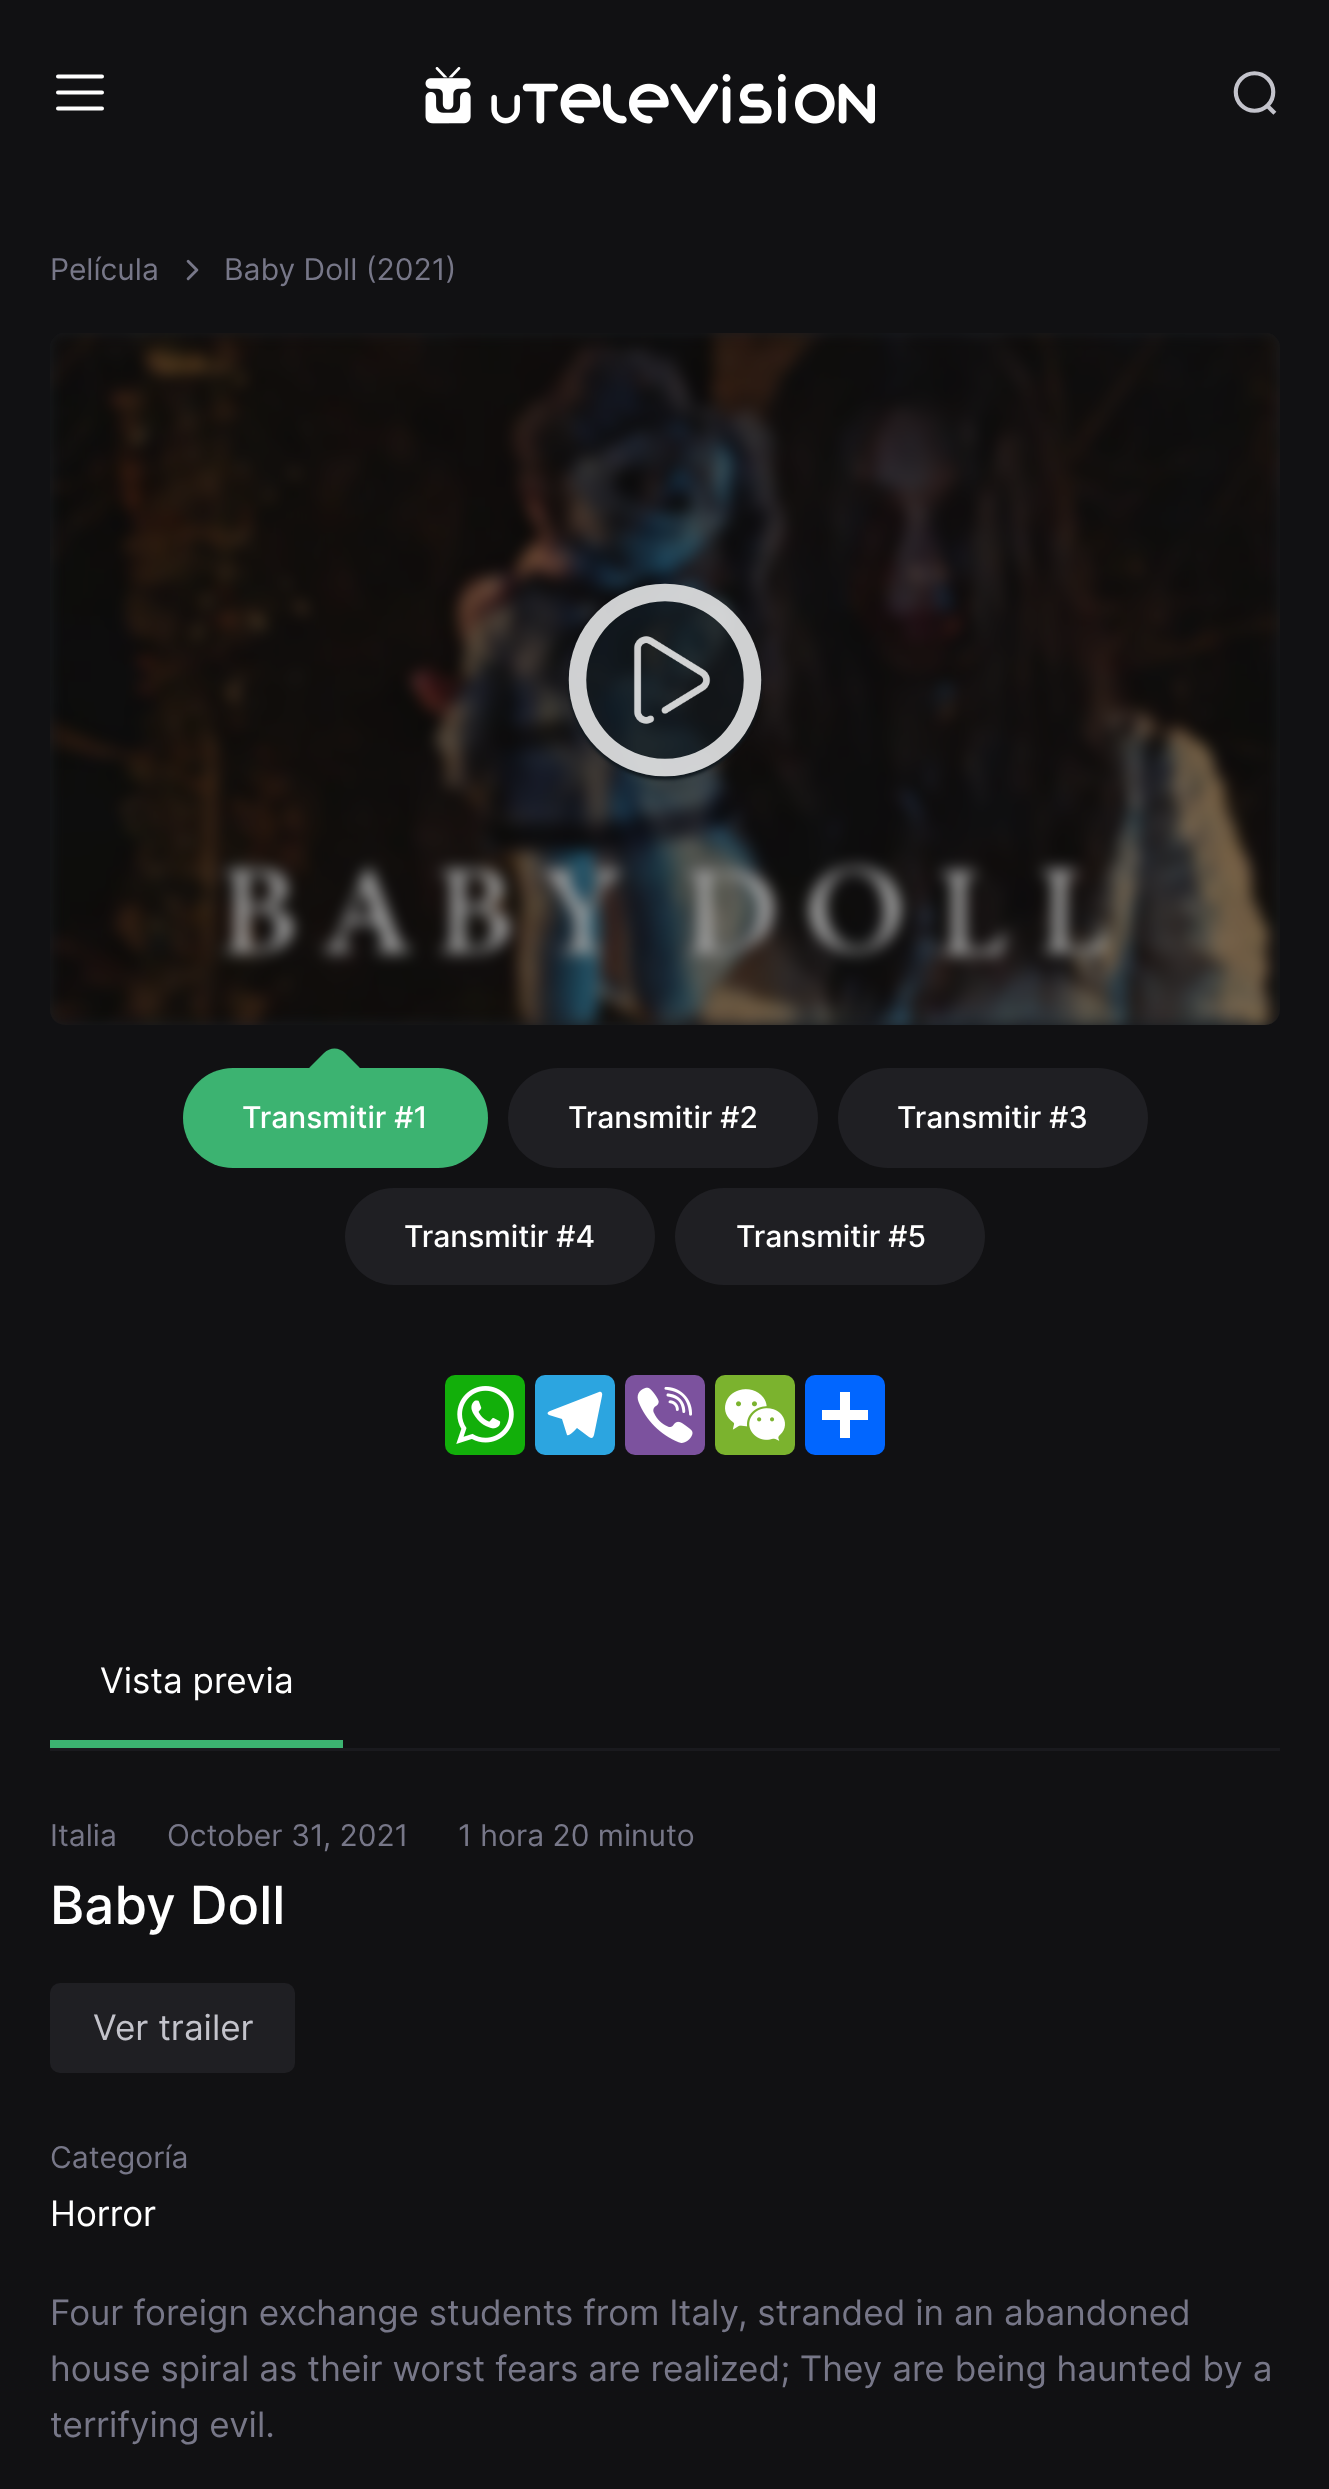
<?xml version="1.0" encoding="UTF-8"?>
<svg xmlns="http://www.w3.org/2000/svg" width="1329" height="2489">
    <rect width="100%" height="100%" fill="#111113"/>
    <path d="M 58 76.5 H 102 M 58 92.5 H 102 M 58 108.5 H 102" fill="none" stroke="#FFFFFF" stroke-width="4" stroke-linecap="round"/>
    <image x="425" y="67" width="450" height="57" href="img_01.png"/>
    <image x="1233" y="71" width="44" height="44" href="img_02.png"/>
    <text x="50" y="280" font-family="Inter" font-size="30" fill="#777788">Película</text>
    <image x="186" y="259" width="13" height="22" href="img_03.png"/>
    <text x="224" y="280" font-family="Inter" font-size="30" fill="#777788">Baby Doll (2021)</text>
    <image x="50" y="333" width="1230" height="692" href="img_04.png"/>
    <path d="M 345 1053 L 359 1067 C 365 1073 365 1082 359 1088 L 345 1102 C 339 1108 330 1108 324 1102 L 310 1088 C 304 1082 304 1073 310 1067 L 324 1053 C 330 1047 339 1047 345 1053 Z" fill="#3CB371"/>
    <rect x="183" y="1068" width="305" height="100" rx="50" fill="#3CB371"/>
    <text x="242" y="1128" font-family="Inter" font-size="30" font-weight="500" fill="#FFFFFF">Transmitir #1</text>
    <rect x="508" y="1068" width="310" height="100" rx="50" fill="#1F1F23"/>
    <text x="568" y="1128" font-family="Inter" font-size="30" font-weight="500" fill="#FFFFFF">Transmitir #2</text>
    <rect x="838" y="1068" width="310" height="100" rx="50" fill="#1F1F23"/>
    <text x="897" y="1128" font-family="Inter" font-size="30" font-weight="500" fill="#FFFFFF">Transmitir #3</text>
    <rect x="345" y="1188" width="310" height="97" rx="48.5" fill="#1F1F23"/>
    <text x="404" y="1247" font-family="Inter" font-size="30" font-weight="500" fill="#FFFFFF">Transmitir #4</text>
    <rect x="675" y="1188" width="310" height="97" rx="48.5" fill="#1F1F23"/>
    <text x="736" y="1247" font-family="Inter" font-size="30" font-weight="500" fill="#FFFFFF">Transmitir #5</text>
    <rect x="445" y="1375" width="80" height="80" rx="10" fill="#12AF0A"/>
    <image x="456" y="1386" width="58" height="58" href="img_05.png"/>
    <rect x="535" y="1375" width="80" height="80" rx="10" fill="#2CA5E0"/>
    <path d="M 599 1392 L 550 1411 C 547 1412 547 1414 549 1415 L 562 1419 L 567 1435 C 569 1437 576 1429 577 1428 L 589 1437 C 592 1439 593 1438 594 1435 L 602 1396 C 603 1393 601 1391 599 1392 Z" fill="#FFFFFF"/>
    <rect x="625" y="1375" width="80" height="80" rx="10" fill="#7C529E"/>
    <image x="637" y="1386" width="56" height="57" href="img_06.png"/>
    <rect x="715" y="1375" width="80" height="80" rx="10" fill="#7BB32E"/>
    <image x="725" y="1389" width="60" height="52" href="img_07.png"/>
    <rect x="805" y="1375" width="80" height="80" rx="10" fill="#0166FF"/>
    <rect x="840" y="1392" width="10" height="46" fill="#FFFFFF"/>
    <rect x="822" y="1410" width="46" height="10" fill="#FFFFFF"/>
    <rect x="50" y="1748" width="1230" height="3" fill="#1A1A1E"/>
    <text x="100" y="1693" font-family="Inter" font-size="35" fill="#FFFFFF">Vista previa</text>
    <rect x="50" y="1740" width="293" height="8" fill="#3CB371"/>
    <text x="50" y="1846" font-family="Inter" font-size="30" fill="#777788">Italia</text>
    <text x="167" y="1846" font-family="Inter" font-size="30" fill="#777788">October 31, 2021</text>
    <text x="458" y="1846" font-family="Inter" font-size="30" fill="#777788">1 hora 20 minuto</text>
    <text x="50" y="1924" font-family="Inter" font-size="52.5" font-weight="500" fill="#FFFFFF">Baby Doll</text>
    <rect x="50" y="1983" width="245" height="90" rx="10" fill="#1F1F23"/>
    <text x="93" y="2040" font-family="Inter" font-size="35" fill="#C3C3CB">Ver trailer</text>
    <text x="50" y="2168" font-family="Inter" font-size="30" fill="#777788">Categoría</text>
    <text x="50" y="2226" font-family="Inter" font-size="35" fill="#FFFFFF">Horror</text>
    <text font-family="Inter" font-size="35" fill="#777788">
        <tspan x="50" y="2325">Four foreign exchange students from Italy, stranded in an abandoned</tspan>
        <tspan x="50" y="2381">house spiral as their worst fears are realized; They are being haunted by a</tspan>
        <tspan x="50" y="2437">terrifying evil.</tspan>
    </text>
</svg>
